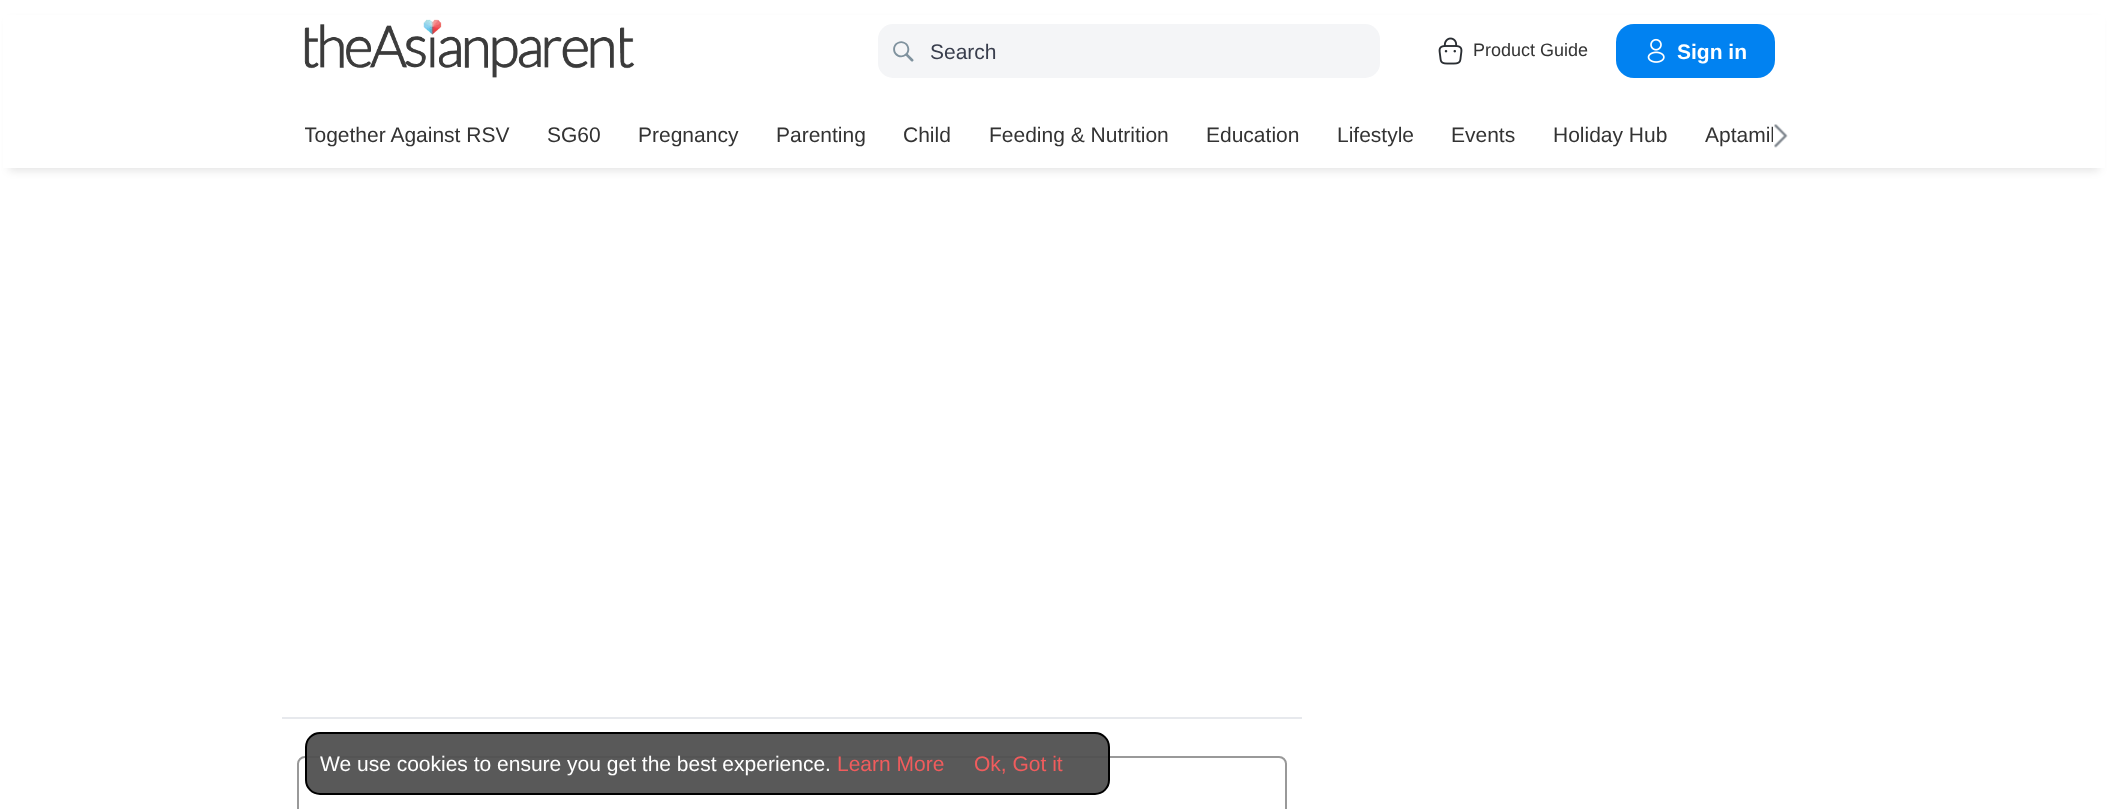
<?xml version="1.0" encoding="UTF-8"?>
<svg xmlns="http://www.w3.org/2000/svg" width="2107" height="809">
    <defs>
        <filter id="blur1" x="-50%" y="-200%" width="200%" height="500%"><feGaussianBlur stdDeviation="4.5"/></filter>
        <clipPath id="clip1"><rect x="305" y="105" width="1500" height="60"/></clipPath>
    </defs>
    <rect width="100%" height="100%" fill="#FFFFFF"/>
    <rect x="9" y="21" width="2090" height="150" fill="#000000" fill-opacity="0.1" filter="url(#blur1)"/>
    <rect x="3" y="15" width="2102" height="153" fill="#FFFFFF"/>
    <image x="304" y="19" width="331" height="59" href="img_01.png"/>
    <rect x="878" y="24" width="502" height="54" rx="15" fill="#F4F5F7"/>
    <image x="893" y="41" width="21" height="21" href="img_02.png"/>
    <text x="930" y="59" font-family="Liberation Sans" font-size="21" fill="#393E4D">Search</text>
    <image x="1438" y="37" width="25" height="28" href="img_03.png"/>
    <text x="1473" y="56" font-family="Liberation Sans" font-size="18" fill="#333333">Product Guide</text>
    <rect x="1616" y="24" width="159" height="54" rx="18" fill="#0182F1"/>
    <image x="1647" y="38" width="18" height="25" href="img_04.png"/>
    <text x="1677" y="59" font-family="Liberation Sans" font-size="21" font-weight="700" fill="#FFFFFF">Sign in</text>
    <g clip-path="url(#clip1)">
        <text x="304" y="142" font-family="Liberation Sans" font-size="21" fill="#333333">Together Against RSV</text>
    </g>
    <text x="547" y="142" font-family="Liberation Sans" font-size="21" fill="#333333">SG60</text>
    <text x="638" y="142" font-family="Liberation Sans" font-size="21" fill="#333333">Pregnancy</text>
    <text x="776" y="142" font-family="Liberation Sans" font-size="21" fill="#333333">Parenting</text>
    <text x="903" y="142" font-family="Liberation Sans" font-size="21" fill="#333333">Child</text>
    <text x="989" y="142" font-family="Liberation Sans" font-size="21" fill="#333333">Feeding &amp; Nutrition</text>
    <text x="1206" y="142" font-family="Liberation Sans" font-size="21" fill="#333333">Education</text>
    <text x="1337" y="142" font-family="Liberation Sans" font-size="21" fill="#333333">Lifestyle</text>
    <text x="1451" y="142" font-family="Liberation Sans" font-size="21" fill="#333333">Events</text>
    <text x="1553" y="142" font-family="Liberation Sans" font-size="21" fill="#333333">Holiday Hub</text>
    <text x="1705" y="142" font-family="Liberation Sans" font-size="21" fill="#333333">Aptamil</text>
    <rect x="1773" y="126" width="1" height="16" fill="#FFFFFF"/>
    <image x="1774" y="124" width="14" height="24" href="img_05.png"/>
    <rect x="282" y="717" width="1020" height="2" fill="#E7E9ED"/>
    <rect x="298" y="757" width="988" height="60" rx="7" fill="none" stroke="#999999" stroke-width="2"/>
    <rect x="306" y="733" width="803" height="61" rx="14" fill="#505050" fill-opacity="0.95" stroke="#000000" stroke-width="2"/>
    <text x="320" y="771" font-family="Liberation Sans" font-size="21" fill="#FFFFFF">We use cookies to ensure you get the best experience.</text>
    <text x="837" y="771" font-family="Liberation Sans" font-size="21" fill="#F05C5D">Learn More</text>
    <text x="974" y="771" font-family="Liberation Sans" font-size="21" fill="#F05C5D">Ok, Got it</text>
</svg>
